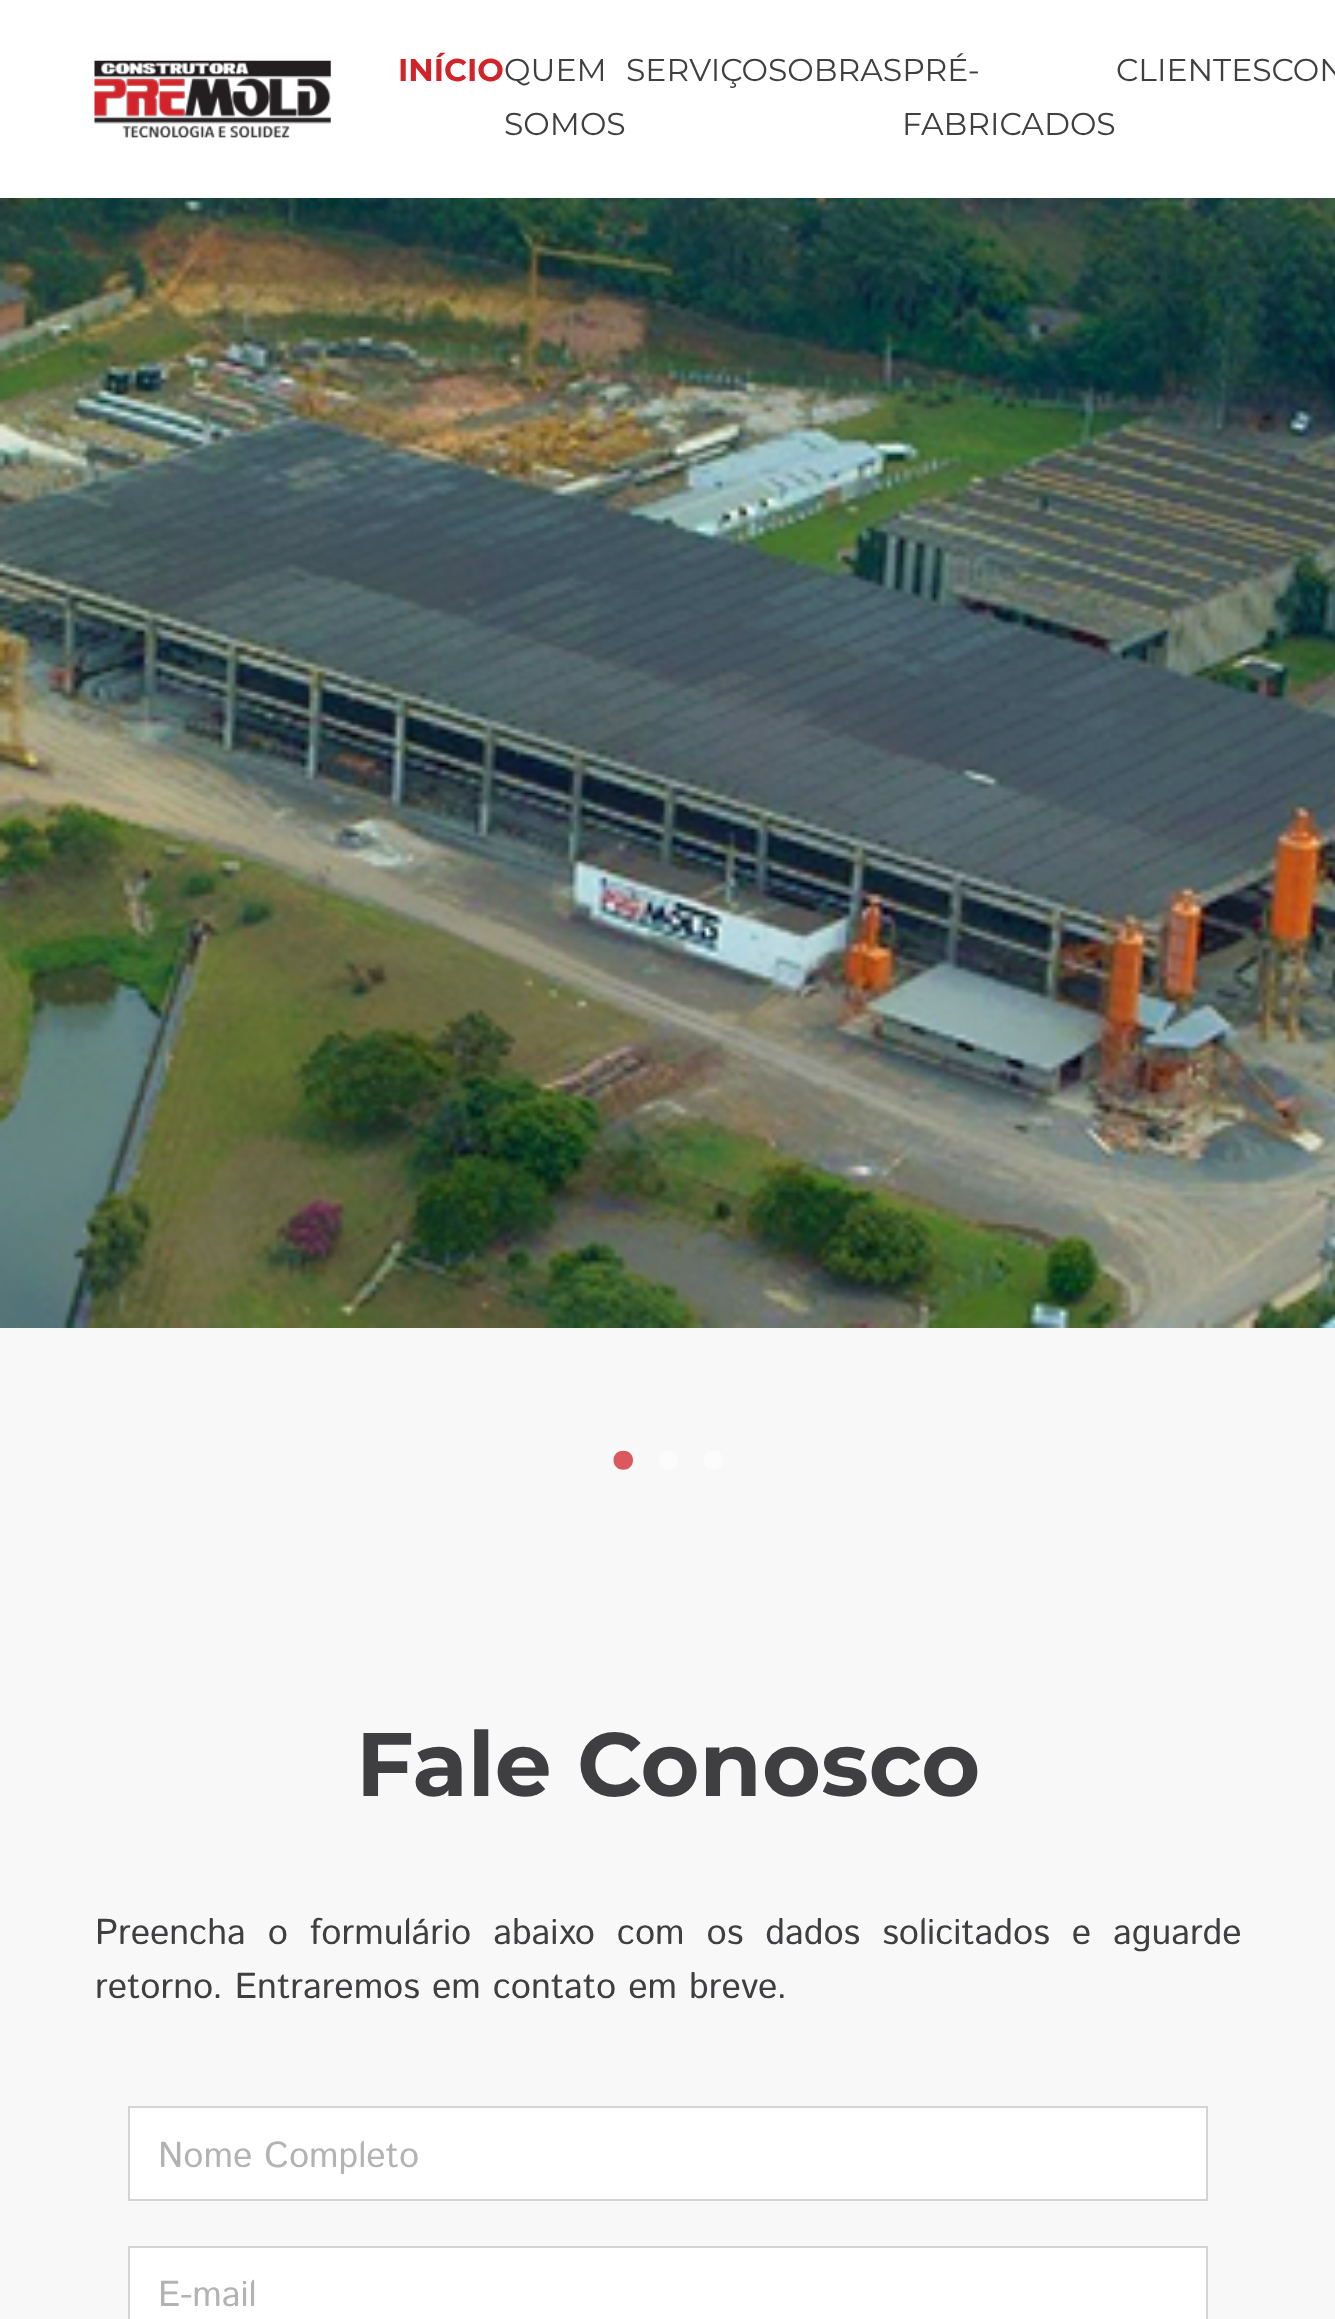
<?xml version="1.0" encoding="UTF-8"?>
<svg xmlns="http://www.w3.org/2000/svg" width="1335" height="2319">
    <rect width="100%" height="100%" fill="#F8F8F8"/>
    <rect x="0" y="0" width="1335" height="198" fill="#FFFFFF"/>
    <image x="94" y="60" width="237" height="78" href="img_01.png"/>
    <text x="398" y="81" font-family="Montserrat" font-size="31.5" font-weight="700" fill="#D1232A">INÍCIO</text>
    <text font-family="Montserrat" font-size="31.5" fill="#3F3E40">
        <tspan x="504" y="81">QUEM</tspan>
        <tspan x="504" y="135">SOMOS</tspan>
    </text>
    <text x="626" y="81" font-family="Montserrat" font-size="31.5" fill="#3F3E40">SERVIÇOSOBRASPRÉ-</text>
    <text x="1116" y="81" font-family="Montserrat" font-size="31.5" fill="#3F3E40">CLIENTESCON</text>
    <text x="902" y="135" font-family="Montserrat" font-size="31.5" fill="#3F3E40">FABRICADOS</text>
    <image x="0" y="198" width="1335" height="1130" href="img_02.png"/>
    <path d="M 633 1460 C 633 1447.5 613.5 1447.5 613.5 1460 C 613.5 1473 633 1473 633 1460 Z" fill="#DB585E"/>
    <path d="M 678 1460 C 678 1447.5 658.5 1447.5 658.5 1460 C 658.5 1473 678 1473 678 1460 Z" fill="#FCFCFC"/>
    <path d="M 723 1460 C 723 1447.5 703.5 1447.5 703.5 1460 C 703.5 1473 723 1473 723 1460 Z" fill="#FCFCFC"/>
    <text x="356" y="1796" font-family="Montserrat" font-size="90" font-weight="700" fill="#3F3E40">Fale Conosco</text>
    <text font-family="Istok Web" font-size="36" fill="#3F3E40">
        <tspan x="95" y="1944" word-spacing="10">Preencha o formulário abaixo com os dados solicitados e aguarde</tspan>
        <tspan x="95" y="1998">retorno. Entraremos em contato em breve.</tspan>
    </text>
    <rect x="129" y="2107" width="1078" height="93" fill="#FFFFFF" stroke="#D1D3D4" stroke-width="2"/>
    <text x="158" y="2167" font-family="Istok Web" font-size="36" fill="#B3B3B3">Nome Completo</text>
    <rect x="129" y="2247" width="1078" height="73" fill="#FFFFFF" stroke="#D1D3D4" stroke-width="2"/>
    <text x="158" y="2306" font-family="Istok Web" font-size="36" fill="#B3B3B3">E-mail</text>
</svg>
